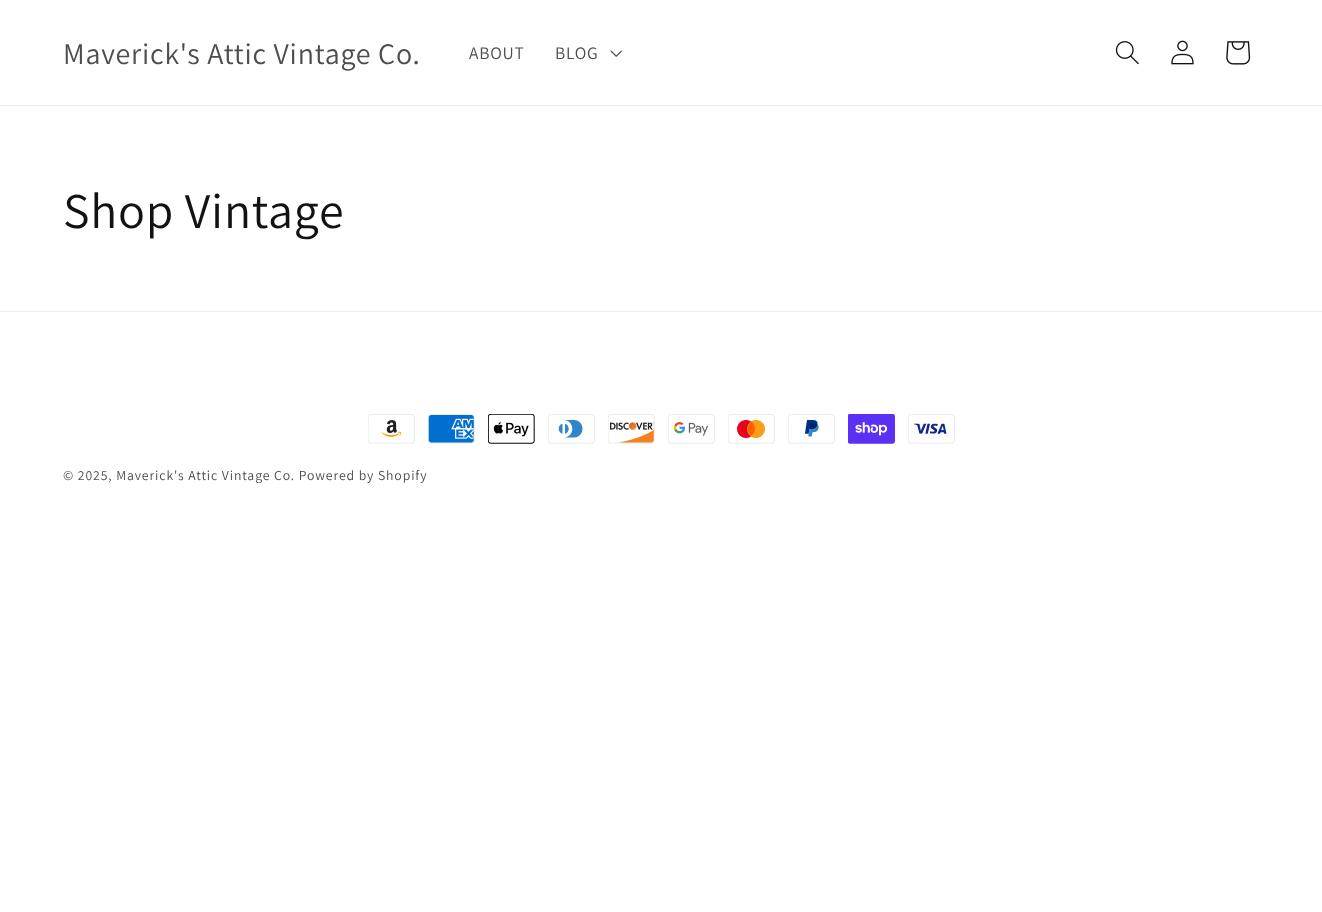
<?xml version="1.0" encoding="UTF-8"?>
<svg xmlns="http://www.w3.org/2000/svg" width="1322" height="912">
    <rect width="100%" height="100%" fill="#FFFFFF"/>
    <rect x="0" y="105" width="1322" height="1" fill="#ECECEC"/>
    <text x="63" y="64" font-family="Assistant" font-size="30" letter-spacing="0.75" fill="#4D4D4D">Maverick's Attic Vintage Co.</text>
    <text x="469" y="59" font-family="Assistant" font-size="17.5" letter-spacing="0.75" fill="#4D4D4D">ABOUT</text>
    <text x="555" y="59" font-family="Assistant" font-size="17.5" letter-spacing="0.75" fill="#4D4D4D">BLOG</text>
    <image x="610" y="50" width="12" height="7" href="img_01.png"/>
    <image x="1115" y="41" width="24" height="24" href="img_02.png"/>
    <image x="1171" y="40" width="23" height="25" href="img_03.png"/>
    <image x="1226" y="41" width="25" height="24" href="img_04.png"/>
    <text x="63" y="228" font-family="Assistant" font-size="50" letter-spacing="0.75" fill="#121212">Shop Vintage</text>
    <rect x="0" y="311" width="1322" height="1" fill="#ECECEC"/>
    <image x="368" y="414" width="47" height="30" href="img_05.png"/>
    <image x="428" y="414" width="47" height="30" href="img_06.png"/>
    <image x="488" y="414" width="47" height="30" href="img_07.png"/>
    <image x="548" y="414" width="47" height="30" href="img_08.png"/>
    <image x="608" y="414" width="47" height="30" href="img_09.png"/>
    <image x="668" y="414" width="47" height="30" href="img_10.png"/>
    <image x="728" y="414" width="47" height="30" href="img_11.png"/>
    <image x="788" y="414" width="47" height="30" href="img_12.png"/>
    <image x="848" y="414" width="47" height="30" href="img_13.png"/>
    <image x="908" y="414" width="47" height="30" href="img_14.png"/>
    <text x="63" y="480" font-family="Assistant" font-size="13.75" letter-spacing="0.88" fill="#4D4D4D">© 2025, Maverick's Attic Vintage Co. Powered by Shopify</text>
</svg>
